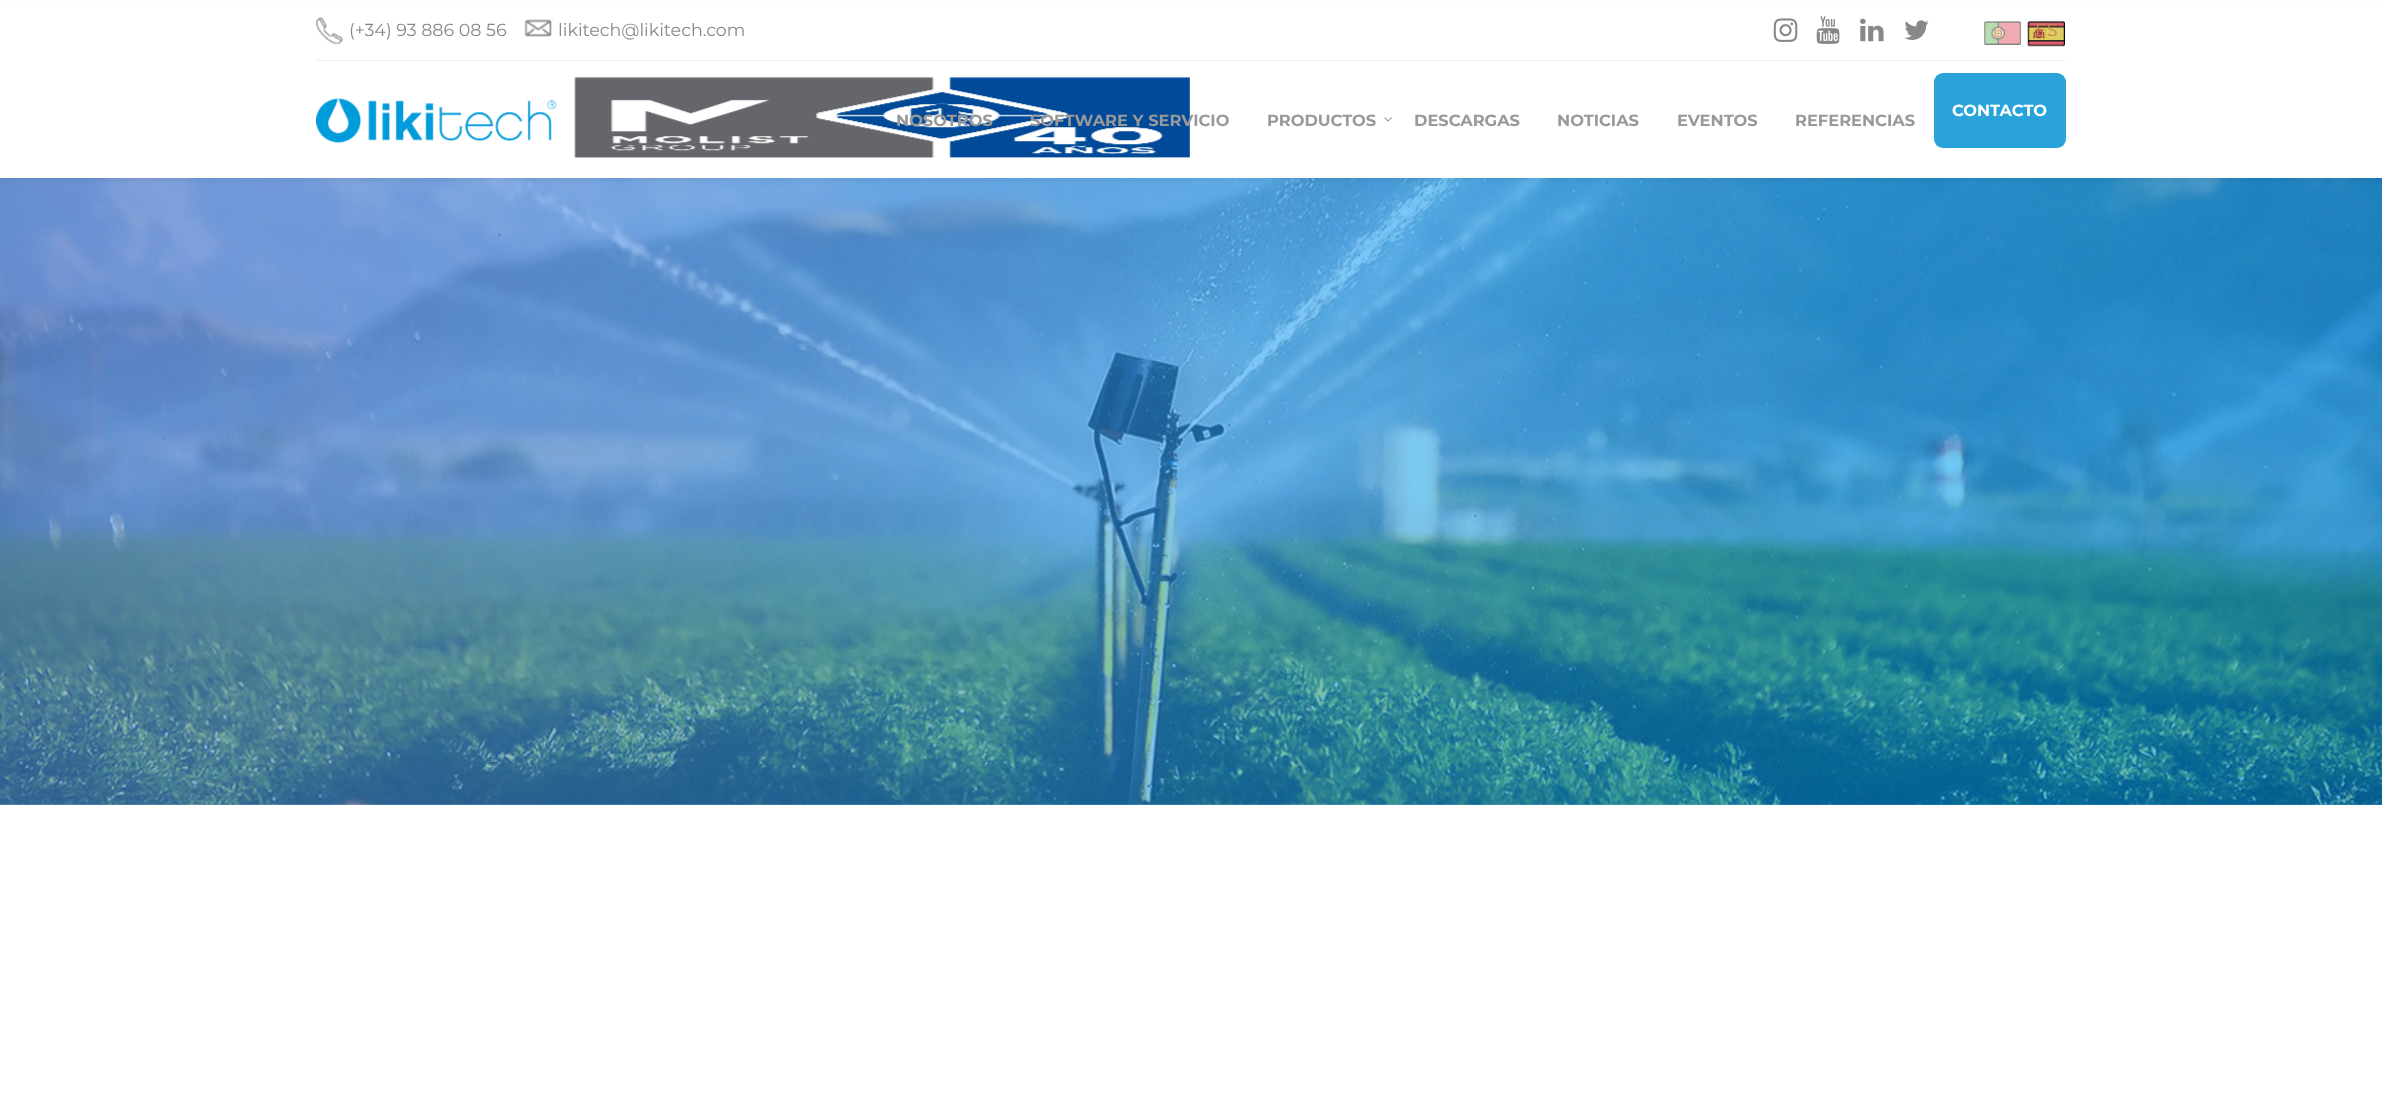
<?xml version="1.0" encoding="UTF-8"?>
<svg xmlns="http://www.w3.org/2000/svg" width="2382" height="1107">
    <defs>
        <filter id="blur1" x="-50%" y="-200%" width="200%" height="500%"><feGaussianBlur stdDeviation="2"/></filter>
    </defs>
    <rect width="100%" height="100%" fill="#FFFFFF"/>
    <image x="0" y="178" width="2382" height="627" href="img_12.png"/>
    <image x="0" y="178" width="2382" height="627" href="img_13.png"/>
    <rect x="0" y="4" width="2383" height="177" fill="#000000" fill-opacity="0.05" filter="url(#blur1)"/>
    <rect x="0" y="2" width="2382" height="176" fill="#FFFFFF"/>
    <rect x="316" y="60" width="1750" height="1" fill="#EEEEEE"/>
    <image x="316" y="17" width="28" height="28" href="img_01.png"/>
    <text x="349" y="36" font-family="Montserrat" font-size="17.5" fill="#888888">(+34) 93 886 08 56</text>
    <image x="524" y="19" width="28" height="18" href="img_02.png"/>
    <text x="558" y="36" font-family="Montserrat" font-size="17.5" fill="#888888">likitech@likitech.com</text>
    <image x="1773" y="18" width="25" height="24" href="img_03.png"/>
    <image x="1816" y="16" width="24" height="28" href="img_04.png"/>
    <image x="1860" y="18" width="24" height="24" href="img_05.png"/>
    <image x="1904" y="20" width="25" height="20" href="img_06.png"/>
    <image x="1984" y="21" width="38" height="24" href="img_07.png"/>
    <image x="2027" y="21" width="38" height="26" href="img_08.png"/>
    <text x="2035" y="36" font-family="Montserrat" font-size="17.5" fill="#CA8757">ES</text>
    <image x="316" y="98" width="241" height="46" href="img_09.png"/>
    <image x="574" y="77" width="616" height="81" href="img_10.png"/>
    <rect x="1934" y="73" width="132" height="75" rx="9" fill="#2AA3DB"/>
    <text x="1952" y="116" font-family="Montserrat" font-size="16.25" font-weight="700" fill="#FFFFFF">CONTACTO</text>
    <text x="896" y="126" font-family="Montserrat" font-size="16.25" font-weight="700" fill="#999999">NOSOTROS</text>
    <text x="1030" y="126" font-family="Montserrat" font-size="16.25" font-weight="700" fill="#999999">SOFTWARE Y SERVICIO</text>
    <text x="1267" y="126" font-family="Montserrat" font-size="16.25" font-weight="700" fill="#999999">PRODUCTOS</text>
    <image x="1384" y="117" width="8" height="5" href="img_11.png"/>
    <text x="1414" y="126" font-family="Montserrat" font-size="16.25" font-weight="700" fill="#999999">DESCARGAS</text>
    <text x="1557" y="126" font-family="Montserrat" font-size="16.25" font-weight="700" fill="#999999">NOTICIAS</text>
    <text x="1677" y="126" font-family="Montserrat" font-size="16.25" font-weight="700" fill="#999999">EVENTOS</text>
    <text x="1795" y="126" font-family="Montserrat" font-size="16.25" font-weight="700" fill="#999999">REFERENCIAS</text>
</svg>
